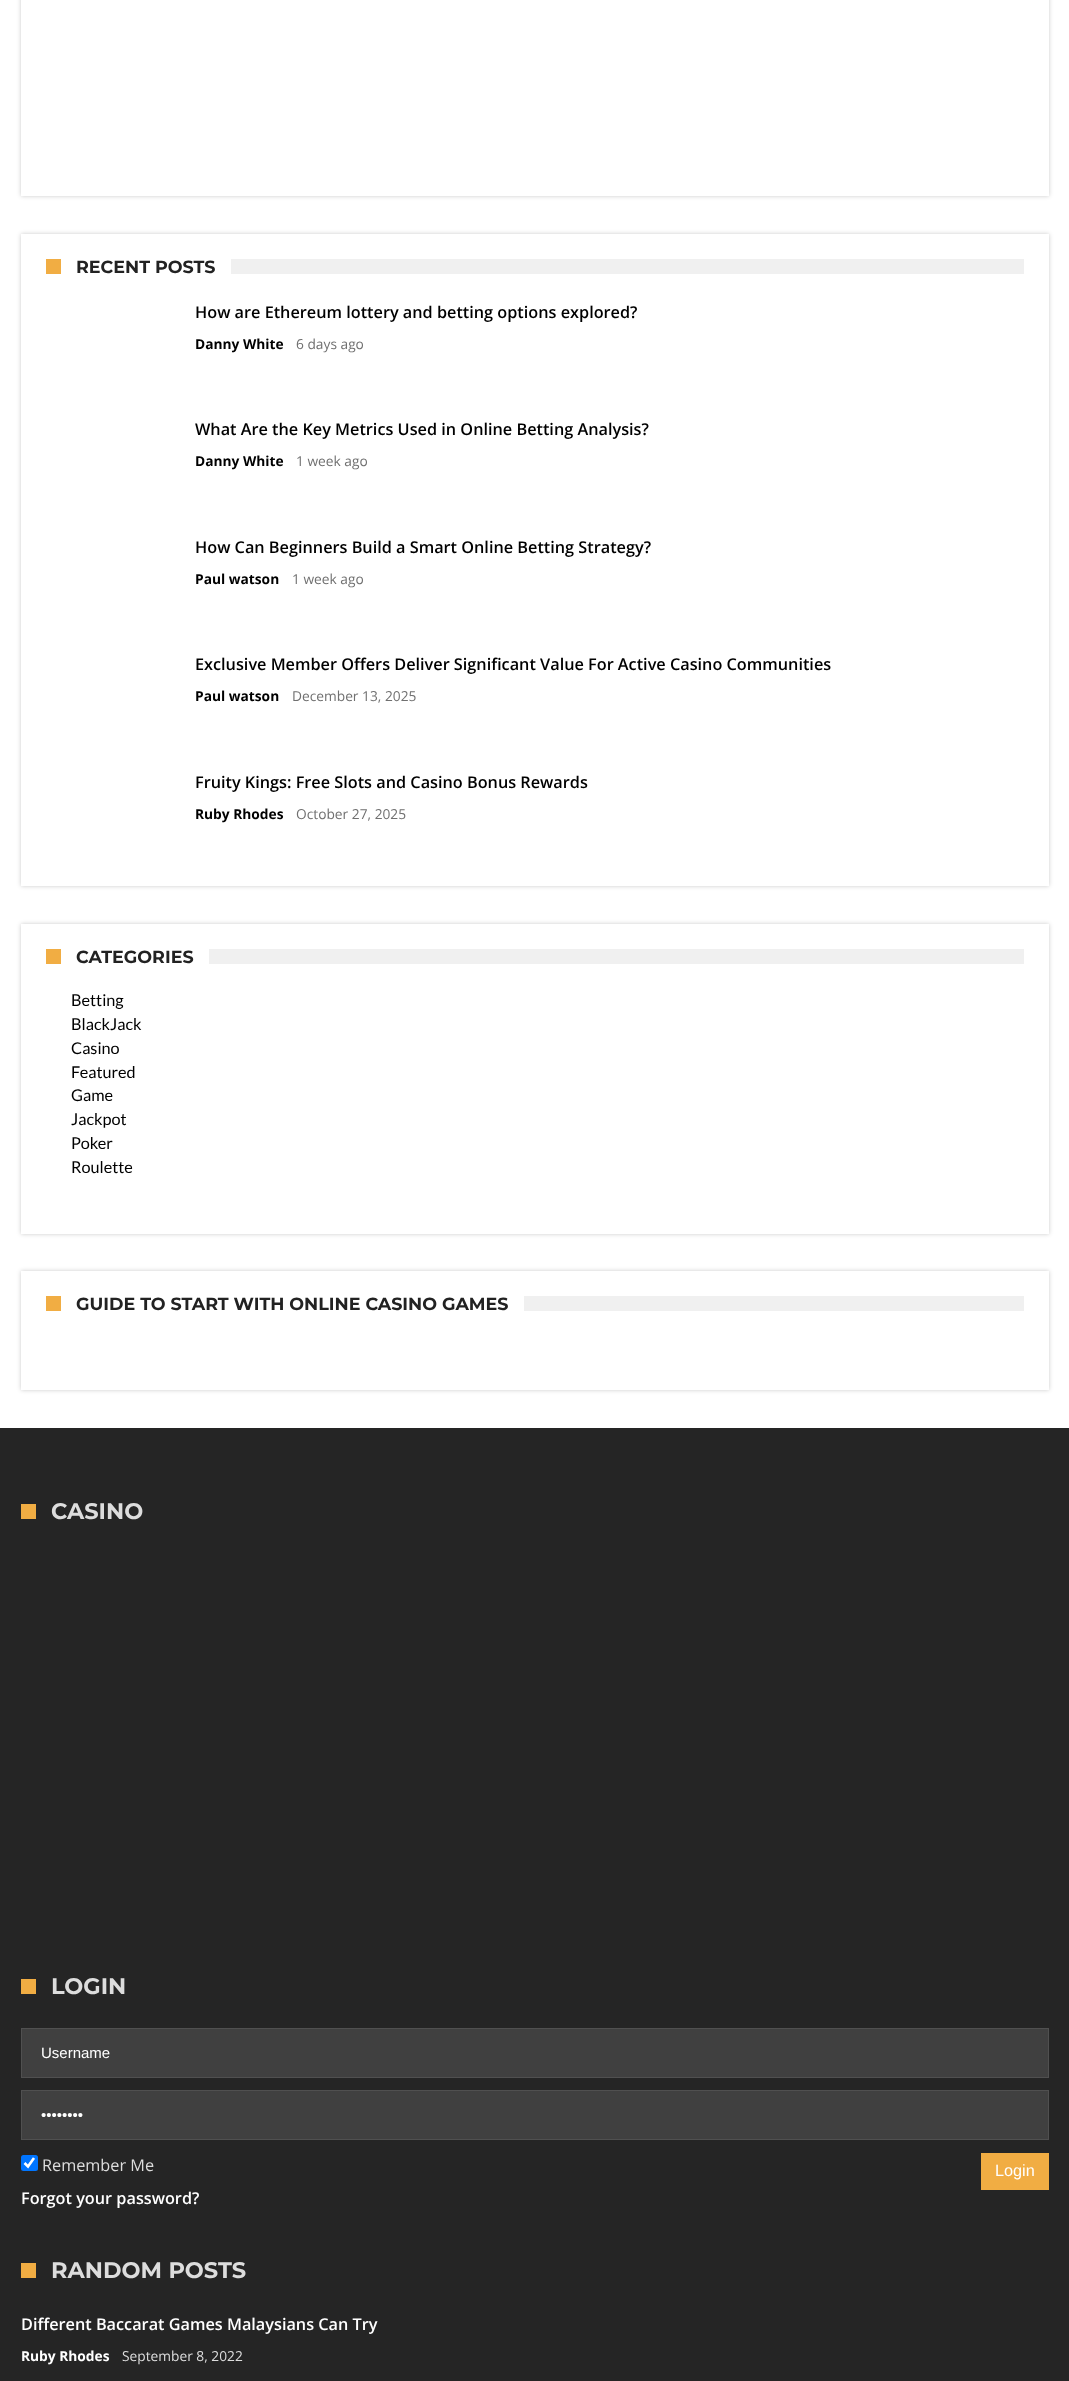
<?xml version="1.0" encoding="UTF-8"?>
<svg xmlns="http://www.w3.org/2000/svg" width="1069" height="2381">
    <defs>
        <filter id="blur1" x="-50%" y="-200%" width="200%" height="500%"><feGaussianBlur stdDeviation="2"/></filter>
    </defs>
    <rect width="100%" height="100%" fill="#FFFFFF"/>
    <rect x="21" y="-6" width="1028" height="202" fill="#000000" fill-opacity="0.21" filter="url(#blur1)"/>
    <rect x="21" y="0" width="1028" height="196" fill="#FFFFFF"/>
    <rect x="21" y="234" width="1028" height="652" fill="#000000" fill-opacity="0.21" filter="url(#blur1)"/>
    <rect x="21" y="234" width="1028" height="652" fill="#FFFFFF"/>
    <rect x="231" y="259" width="793" height="15" fill="#F0F0F0"/>
    <rect x="46" y="259" width="15" height="15" fill="#F1AD43"/>
    <text x="76" y="273" font-family="Montserrat" font-size="17.5" font-weight="700" fill="#222222">RECENT POSTS</text>
    <text x="195" y="318" font-family="Open Sans" font-size="16.25" font-weight="600" fill="#000000">How are Ethereum lottery and betting options explored?</text>
    <text x="195" y="349" font-family="Open Sans" font-size="13.75" font-weight="700" fill="#000000">Danny White</text>
    <text x="296" y="349" font-family="Open Sans" font-size="13.75" fill="#707070">6 days ago</text>
    <text x="195" y="435" font-family="Open Sans" font-size="16.25" font-weight="600" fill="#000000">What Are the Key Metrics Used in Online Betting Analysis?</text>
    <text x="195" y="466" font-family="Open Sans" font-size="13.75" font-weight="700" fill="#000000">Danny White</text>
    <text x="296" y="466" font-family="Open Sans" font-size="13.75" fill="#707070">1 week ago</text>
    <text x="195" y="553" font-family="Open Sans" font-size="16.25" font-weight="600" fill="#000000">How Can Beginners Build a Smart Online Betting Strategy?</text>
    <text x="195" y="584" font-family="Open Sans" font-size="13.75" font-weight="700" fill="#000000">Paul watson</text>
    <text x="292" y="584" font-family="Open Sans" font-size="13.75" fill="#707070">1 week ago</text>
    <text x="195" y="670" font-family="Open Sans" font-size="16.25" font-weight="600" fill="#000000">Exclusive Member Offers Deliver Significant Value For Active Casino Communities</text>
    <text x="195" y="701" font-family="Open Sans" font-size="13.75" font-weight="700" fill="#000000">Paul watson</text>
    <text x="292" y="701" font-family="Open Sans" font-size="13.75" fill="#707070">December 13, 2025</text>
    <text x="195" y="788" font-family="Open Sans" font-size="16.25" font-weight="600" fill="#000000">Fruity Kings: Free Slots and Casino Bonus Rewards</text>
    <text x="195" y="819" font-family="Open Sans" font-size="13.75" font-weight="700" fill="#000000">Ruby Rhodes</text>
    <text x="296" y="819" font-family="Open Sans" font-size="13.75" fill="#707070">October 27, 2025</text>
    <rect x="21" y="924" width="1028" height="310" fill="#000000" fill-opacity="0.21" filter="url(#blur1)"/>
    <rect x="21" y="924" width="1028" height="310" fill="#FFFFFF"/>
    <rect x="209" y="949" width="815" height="15" fill="#F0F0F0"/>
    <rect x="46" y="949" width="15" height="15" fill="#F1AD43"/>
    <text x="76" y="963" font-family="Montserrat" font-size="17.5" font-weight="700" fill="#222222">CATEGORIES</text>
    <text font-family="Lato" font-size="16.25" fill="#000000">
        <tspan x="71" y="1006">Betting</tspan>
        <tspan x="71" y="1030">BlackJack</tspan>
        <tspan x="71" y="1054">Casino</tspan>
        <tspan x="71" y="1078">Featured</tspan>
        <tspan x="71" y="1101">Game</tspan>
        <tspan x="71" y="1125">Jackpot</tspan>
        <tspan x="71" y="1149">Poker</tspan>
        <tspan x="71" y="1173">Roulette</tspan>
    </text>
    <rect x="21" y="1271" width="1028" height="119" fill="#000000" fill-opacity="0.21" filter="url(#blur1)"/>
    <rect x="21" y="1271" width="1028" height="119" fill="#FFFFFF"/>
    <rect x="524" y="1296" width="500" height="15" fill="#F0F0F0"/>
    <rect x="46" y="1296" width="15" height="15" fill="#F1AD43"/>
    <text x="76" y="1310" font-family="Montserrat" font-size="17.5" font-weight="700" fill="#222222">GUIDE TO START WITH ONLINE CASINO GAMES</text>
    <rect x="0" y="1428" width="1069" height="953" fill="#252525"/>
    <rect x="21" y="1504" width="15" height="15" fill="#F1AD43"/>
    <text x="51" y="1519" font-family="Montserrat" font-size="22.5" font-weight="700" fill="#DDDDDD">CASINO</text>
    <rect x="21" y="1979" width="15" height="15" fill="#F1AD43"/>
    <text x="51" y="1994" font-family="Montserrat" font-size="22.5" font-weight="700" fill="#DDDDDD">LOGIN</text>
    <rect x="21.5" y="2028.5" width="1027" height="49" fill="#404040" stroke="#505050"/>
    <text x="41" y="2058" font-family="Liberation Sans" font-size="15" fill="#FFFFFF">Username</text>
    <rect x="21.5" y="2090.5" width="1027" height="49" fill="#404040" stroke="#505050"/>
    <text x="41" y="2120" font-family="Liberation Sans" font-size="15" fill="#FFFFFF">••••••••</text>
    <rect x="21" y="2155" width="17" height="16" rx="2.5" fill="#0075FF"/>
    <path d="M 24.5 2163 L 28 2166.5 L 34 2158" fill="none" stroke="#FFFFFF" stroke-width="2.6"/>
    <text x="42" y="2171" font-family="Open Sans" font-size="16.25" fill="#DDDDDD">Remember Me</text>
    <rect x="981" y="2153" width="68" height="37" fill="#F1AD43"/>
    <text x="995" y="2176" font-family="Liberation Sans" font-size="16.25" fill="#FFFFFF">Login</text>
    <text x="21" y="2204" font-family="Open Sans" font-size="16.25" font-weight="600" fill="#FFFFFF">Forgot your password?</text>
    <rect x="21" y="2263" width="15" height="15" fill="#F1AD43"/>
    <text x="51" y="2278" font-family="Montserrat" font-size="22.5" font-weight="700" fill="#DDDDDD">RANDOM POSTS</text>
    <text x="21" y="2330" font-family="Open Sans" font-size="16.25" font-weight="600" fill="#FFFFFF">Different Baccarat Games Malaysians Can Try</text>
    <text x="21" y="2361" font-family="Open Sans" font-size="13.75" font-weight="700" fill="#FFFFFF">Ruby Rhodes</text>
    <text x="122" y="2361" font-family="Open Sans" font-size="13.75" fill="#DDDDDD">September 8, 2022</text>
</svg>
